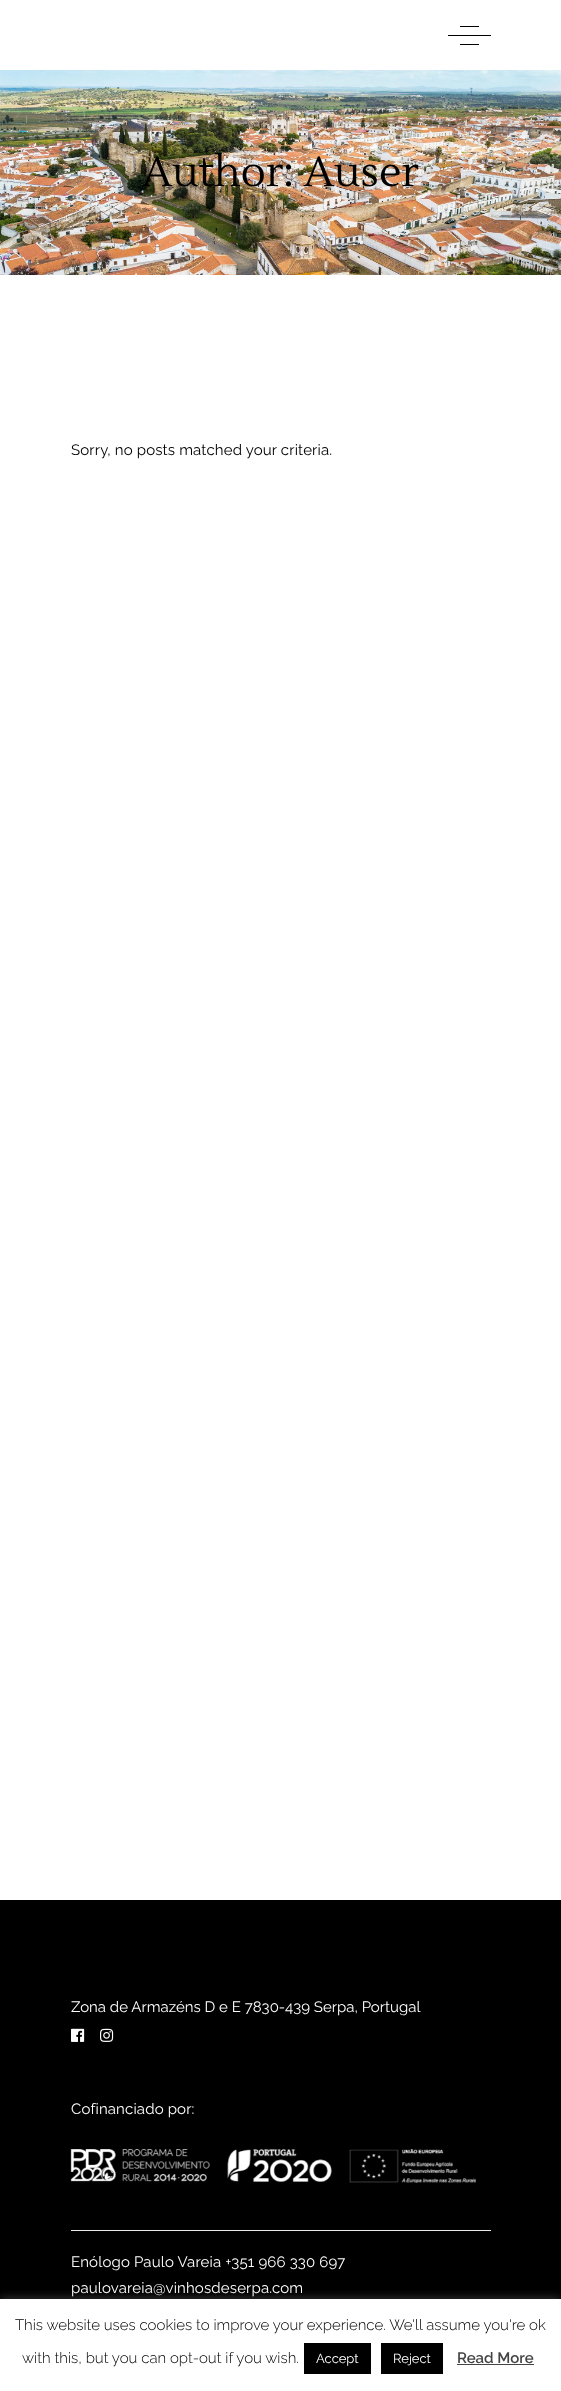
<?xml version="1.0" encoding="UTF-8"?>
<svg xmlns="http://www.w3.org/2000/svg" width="561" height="2391">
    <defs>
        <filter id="blur1" x="-50%" y="-200%" width="200%" height="500%"><feGaussianBlur stdDeviation="5"/></filter>
    </defs>
    <rect width="100%" height="100%" fill="#FFFFFF"/>
    <rect x="460" y="26" width="19" height="1" fill="#000000"/>
    <rect x="448" y="35" width="43" height="1" fill="#000000"/>
    <rect x="460" y="44" width="19" height="1" fill="#000000"/>
    <image x="0" y="70" width="561" height="205" href="img_01.png"/>
    <text x="142" y="186" font-family="Lustria" font-size="42" fill="#000000">Author: Auser</text>
    <text x="71" y="455" font-family="Raleway" font-size="15" letter-spacing="0.15" fill="#000000">Sorry, no posts matched your criteria.</text>
    <rect x="0" y="1900" width="561" height="399" fill="#000000"/>
    <text x="71" y="2012" font-family="Raleway" font-size="15" fill="#FFFFFF">Zona de Armazéns D e E 7830-439 Serpa, Portugal</text>
    <image x="71" y="2028" width="14" height="14" href="img_02.png"/>
    <image x="100" y="2028" width="14" height="14" href="img_03.png"/>
    <text x="71" y="2114" font-family="Raleway" font-size="15" letter-spacing="0.15" fill="#FFFFFF">Cofinanciado por:</text>
    <image x="70" y="2149" width="406" height="34" href="img_04.png"/>
    <rect x="71" y="2230" width="420" height="1" fill="#EBEBEB"/>
    <text font-family="Raleway" font-size="15" letter-spacing="0.15" fill="#FFFFFF">
        <tspan x="71" y="2267">Enólogo Paulo Vareia +351 966 330 697</tspan>
        <tspan x="71" y="2293">paulovareia@vinhosdeserpa.com</tspan>
    </text>
    <rect x="0" y="2298" width="561" height="92" fill="#ACABAB" fill-opacity="0.3" filter="url(#blur1)"/>
    <rect x="0" y="2299" width="561" height="92" fill="#FFFFFF"/>
    <text x="15" y="2330" font-family="Raleway" font-size="15" font-weight="300" fill="#000000">This website uses cookies to improve your experience. We'll assume you're ok</text>
    <text x="22" y="2363" font-family="Raleway" font-size="15" font-weight="300" fill="#000000">with this, but you can opt-out if you wish.</text>
    <rect x="304" y="2343" width="67" height="31" fill="#000000"/>
    <text x="316" y="2363" font-family="Raleway" font-size="13" fill="#FFFFFF">Accept</text>
    <rect x="381" y="2343" width="62" height="31" fill="#000000"/>
    <text x="393" y="2363" font-family="Raleway" font-size="13" fill="#FFFFFF">Reject</text>
    <text x="457" y="2363" font-family="Raleway" font-size="15" font-weight="600" fill="#444444">Read More</text>
    <rect x="457" y="2364" width="77" height="1" fill="#444444"/>
</svg>
